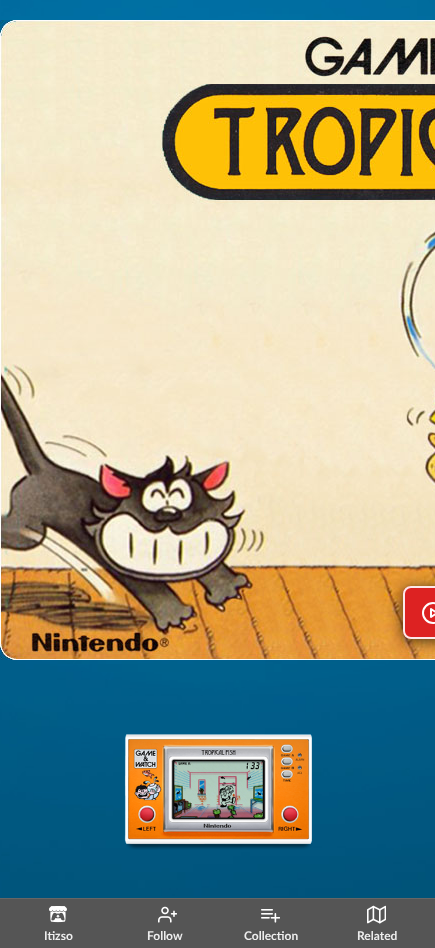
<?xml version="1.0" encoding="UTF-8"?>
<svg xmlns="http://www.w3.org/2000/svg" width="435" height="948">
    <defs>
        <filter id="blur1" x="-50%" y="-200%" width="200%" height="500%"><feGaussianBlur stdDeviation="7"/></filter>
    </defs>
    <rect width="100%" height="100%" fill="#FFFFFF"/>
    <image x="0" y="0" width="435" height="898" href="img_01.png"/>
    <image x="0" y="20" width="435" height="640" href="img_02.png"/>
    <rect x="403" y="588" width="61" height="53" rx="8" fill="#000000" fill-opacity="0.7" filter="url(#blur1)"/>
    <rect x="403" y="586" width="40" height="53" rx="8" fill="#DD2222"/>
    <rect x="404" y="587" width="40" height="51" rx="7" fill="none" stroke="#FFFFFF" stroke-opacity="0.9" stroke-width="2"/>
    <circle cx="433" cy="613" r="10" fill="none" stroke="#FFFFFF" stroke-width="2"/>
    <path d="M 431 609 L 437 613 L 431 617 Z" fill="none" stroke="#FFFFFF" stroke-width="2" stroke-linecap="round" stroke-linejoin="round"/>
    <image x="124" y="734" width="189" height="116" href="img_03.png"/>
    <rect x="0" y="899" width="435" height="49" fill="#555555"/>
    <rect x="0" y="898" width="435" height="1" fill="#666666"/>
    <image x="49" y="906" width="18" height="17" href="img_04.png"/>
    <text x="44" y="940" font-family="Lato" font-size="12" font-weight="700" fill="#EEEEEE">Itizso</text>
    <image x="158" y="906" width="19" height="17" href="img_05.png"/>
    <text x="147" y="940" font-family="Lato" font-size="12" font-weight="700" fill="#EEEEEE">Follow</text>
    <image x="261" y="909" width="19" height="14" href="img_06.png"/>
    <text x="244" y="940" font-family="Lato" font-size="12" font-weight="700" fill="#EEEEEE">Collection</text>
    <image x="367" y="905" width="19" height="19" href="img_07.png"/>
    <text x="357" y="940" font-family="Lato" font-size="12" font-weight="700" fill="#EEEEEE">Related</text>
</svg>
